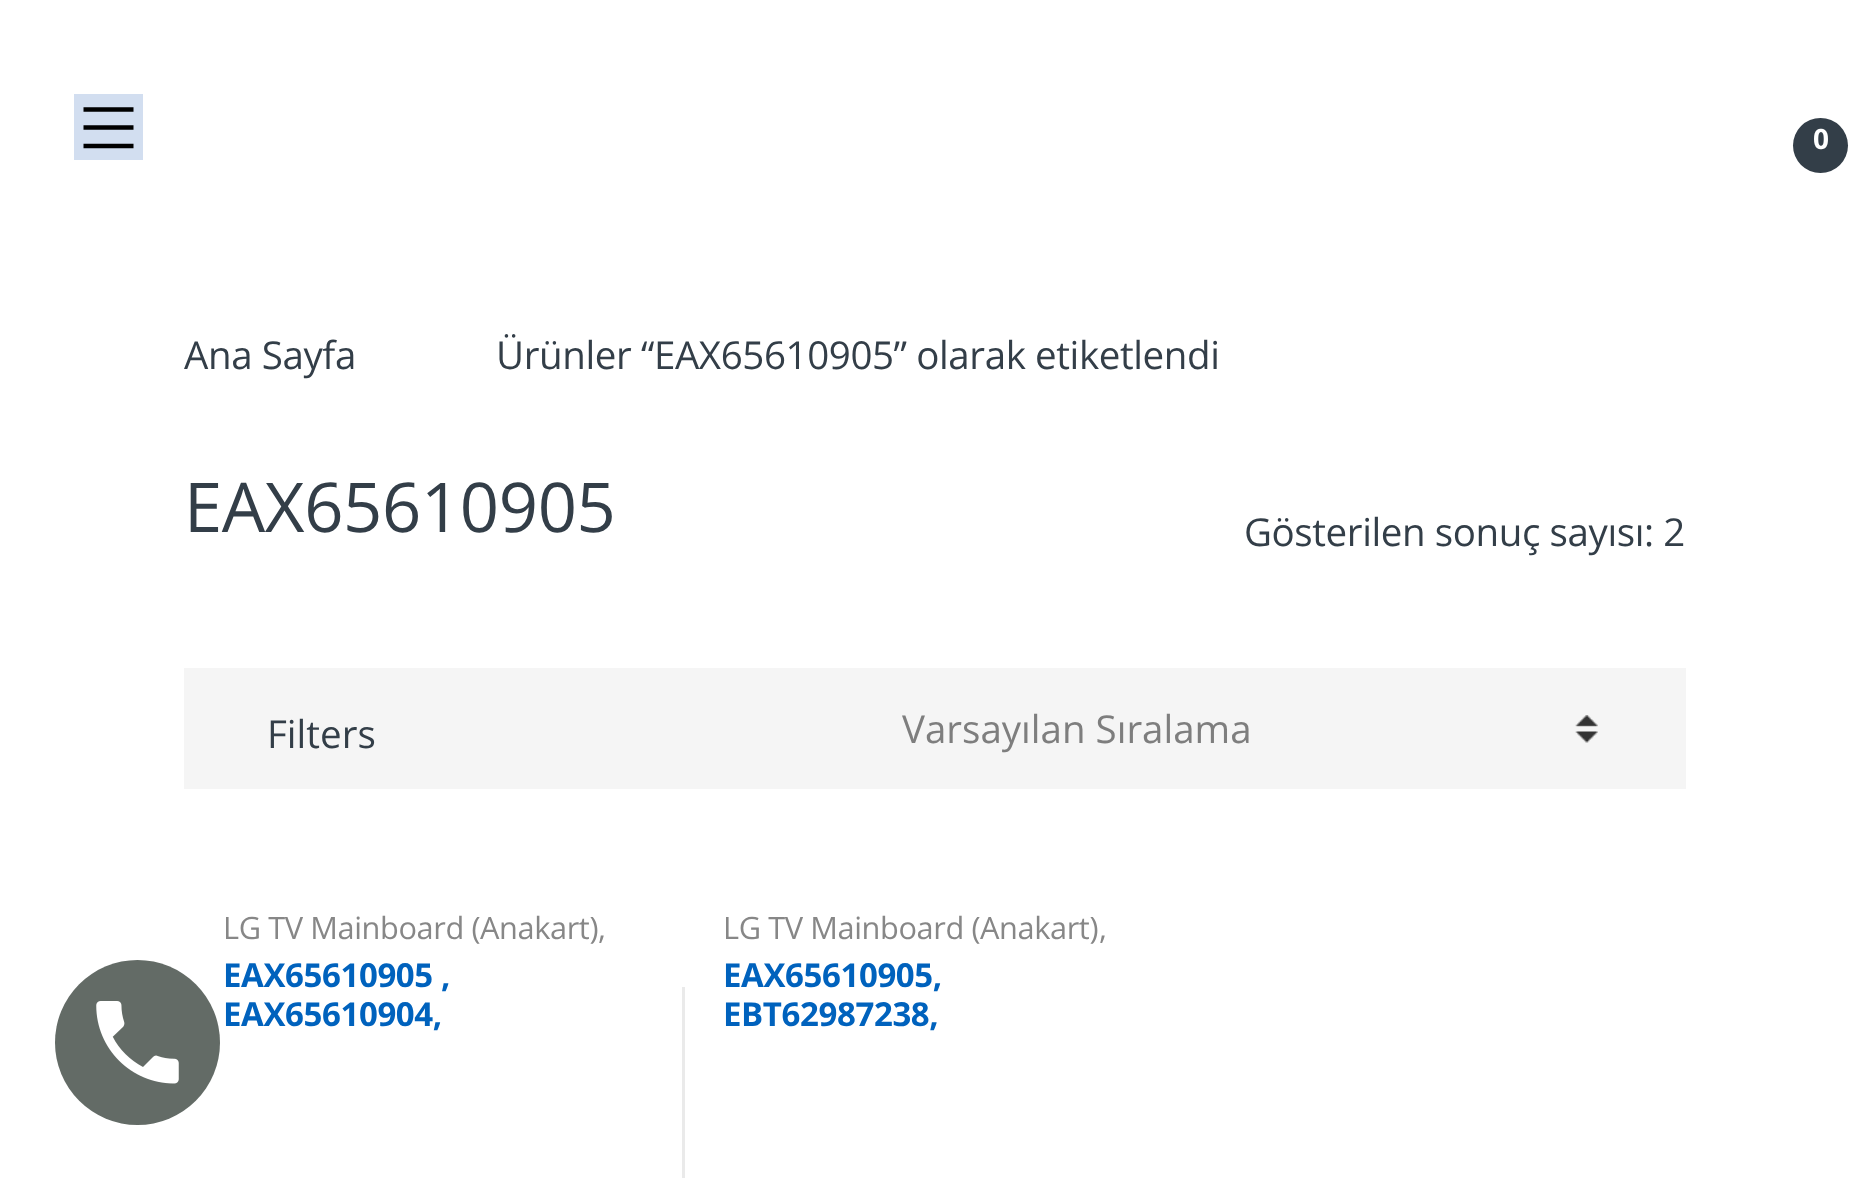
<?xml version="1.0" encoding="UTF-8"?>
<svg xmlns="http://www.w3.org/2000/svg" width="1868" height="1178">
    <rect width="100%" height="100%" fill="#FFFFFF"/>
    <circle cx="137.5" cy="1042.5" r="82.5" fill="#636B66"/>
    <image x="96" y="1001" width="83" height="83" href="img_01.png"/>
    <rect x="74" y="94" width="69" height="66" fill="#D2DEF0"/>
    <path d="M 83.5 109.5 H 133.5 M 83.5 127.5 H 133.5 M 83.5 146 H 133.5" fill="none" stroke="#000000" stroke-width="4.5"/>
    <circle cx="1820.5" cy="145.5" r="27.5" fill="#333E48"/>
    <text x="1813" y="149" font-family="Open Sans" font-size="28" font-weight="700" letter-spacing="-0.4" fill="#FFFFFF">0</text>
    <text x="184" y="369" font-family="Open Sans" font-size="38.5" letter-spacing="-0.4" fill="#333E48">Ana Sayfa</text>
    <text x="496" y="369" font-family="Open Sans" font-size="38.5" letter-spacing="-0.4" fill="#333E48">Ürünler “EAX65610905” olarak etiketlendi</text>
    <text x="184" y="532" font-family="Open Sans" font-size="68.75" letter-spacing="-0.4" fill="#333E48">EAX65610905</text>
    <text x="1244" y="546" font-family="Open Sans" font-size="38.5" letter-spacing="-0.4" fill="#333E48">Gösterilen sonuç sayısı: 2</text>
    <rect x="184" y="668" width="1502" height="121" fill="#F5F5F5"/>
    <text x="267" y="748" font-family="Open Sans" font-size="38.5" fill="#333E48">Filters</text>
    <image x="1575" y="715" width="23" height="28" href="img_02.png"/>
    <text x="902" y="743" font-family="Open Sans" font-size="38.5" fill="#7E7E7E">Varsayılan Sıralama</text>
    <text x="223" y="939" font-family="Open Sans" font-size="30.75" letter-spacing="-0.4" fill="#878787">LG TV Mainboard (Anakart)</text>
    <text x="598" y="939" font-family="Open Sans" font-size="30.75" letter-spacing="-0.4" fill="#878787">,</text>
    <text font-family="Open Sans" font-size="33" font-weight="700" letter-spacing="-0.4" fill="#0062BD">
        <tspan x="223" y="987">EAX65610905 ,</tspan>
        <tspan x="223" y="1026">EAX65610904,</tspan>
    </text>
    <rect x="682" y="987" width="3" height="191" fill="#EAEAEA"/>
    <text x="723" y="939" font-family="Open Sans" font-size="30.75" letter-spacing="-0.4" fill="#878787">LG TV Mainboard (Anakart)</text>
    <text x="1099" y="939" font-family="Open Sans" font-size="30.75" letter-spacing="-0.4" fill="#878787">,</text>
    <text font-family="Open Sans" font-size="33" font-weight="700" letter-spacing="-0.4" fill="#0062BD">
        <tspan x="723" y="987">EAX65610905,</tspan>
        <tspan x="723" y="1026">EBT62987238,</tspan>
    </text>
</svg>
